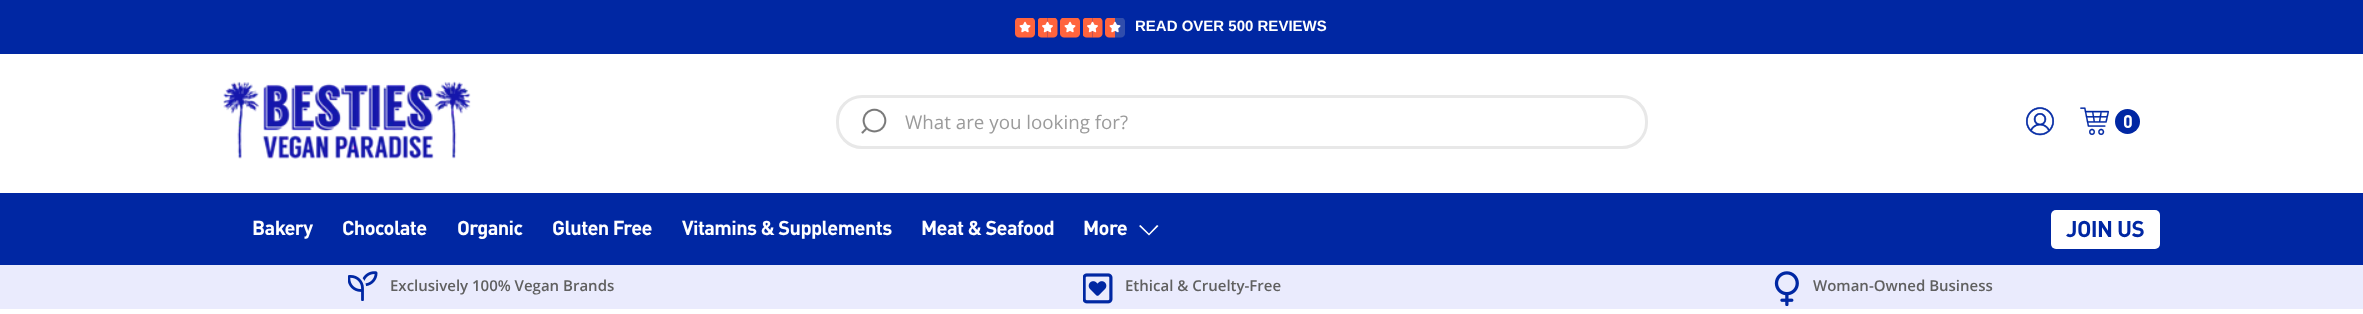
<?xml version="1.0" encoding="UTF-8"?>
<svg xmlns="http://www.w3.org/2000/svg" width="2363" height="314">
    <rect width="100%" height="100%" fill="#FFFFFF"/>
    <rect x="0" y="0" width="2363" height="54" fill="#0027A3"/>
    <image x="1015" y="18" width="20" height="20" href="img_01.png"/>
    <image x="1038" y="18" width="20" height="20" href="img_02.png"/>
    <image x="1060" y="18" width="20" height="20" href="img_01.png"/>
    <image x="1083" y="18" width="20" height="20" href="img_02.png"/>
    <image x="1105" y="18" width="20" height="20" href="img_03.png"/>
    <text x="1135" y="31" font-family="Liberation Sans" font-size="15" font-weight="700" fill="#FFFFFF">READ OVER 500 REVIEWS</text>
    <image x="223" y="81" width="248" height="78" href="img_04.png"/>
    <image x="861" y="108" width="26" height="26" href="img_05.png"/>
    <rect x="837.5" y="96.5" width="809" height="51" rx="24.5" fill="none" stroke="#E8E8E8" stroke-width="3"/>
    <text x="905" y="129" font-family="Open Sans" font-size="18.75" fill="#9B9B9B">What are you looking for?</text>
    <image x="2025" y="107" width="30" height="29" href="img_06.png"/>
    <image x="2080" y="107" width="30" height="29" href="img_07.png"/>
    <circle cx="2127.5" cy="121.5" r="12.5" fill="#0027A3"/>
    <text x="2123" y="128" font-family="DIN" font-size="18" font-weight="700" fill="#FFFFFF">0</text>
    <rect x="0" y="193" width="2363" height="72" fill="#0027A3"/>
    <text x="252" y="235" font-family="DIN" font-size="20" font-weight="700" letter-spacing="-0.6" fill="#FFFFFF">Bakery</text>
    <text x="342" y="235" font-family="DIN" font-size="20" font-weight="700" letter-spacing="-0.6" fill="#FFFFFF">Chocolate</text>
    <text x="457" y="235" font-family="DIN" font-size="20" font-weight="700" letter-spacing="-0.6" fill="#FFFFFF">Organic</text>
    <text x="552" y="235" font-family="DIN" font-size="20" font-weight="700" letter-spacing="-0.6" fill="#FFFFFF">Gluten Free</text>
    <text x="682" y="235" font-family="DIN" font-size="20" font-weight="700" letter-spacing="-0.6" fill="#FFFFFF">Vitamins &amp; Supplements</text>
    <text x="921" y="235" font-family="DIN" font-size="20" font-weight="700" letter-spacing="-0.6" fill="#FFFFFF">Meat &amp; Seafood</text>
    <text x="1083" y="235" font-family="DIN" font-size="20" font-weight="700" letter-spacing="-0.6" fill="#FFFFFF">More</text>
    <path d="M 1149 235.5 L 1139 226 L 1140.5 225 L 1149 233.5 L 1157 225 L 1158.5 226 Z" fill="#FFFFFF"/>
    <rect x="2051" y="210" width="109" height="39" rx="5" fill="#FFFFFF"/>
    <text x="2066" y="237" font-family="DIN" font-size="22.5" font-weight="700" letter-spacing="-0.6" fill="#0027A3">JOIN US</text>
    <rect x="0" y="265" width="2363" height="44" fill="#EAEBFD"/>
    <image x="348" y="271" width="30" height="30" href="img_08.png"/>
    <text x="390" y="291" font-family="Open Sans" font-size="15" font-weight="600" fill="#606060">Exclusively 100% Vegan Brands</text>
    <image x="1083" y="273" width="30" height="31" href="img_09.png"/>
    <text x="1125" y="291" font-family="Open Sans" font-size="15" font-weight="600" fill="#606060">Ethical &amp; Cruelty-Free</text>
    <image x="1774" y="271" width="25" height="35" href="img_10.png"/>
    <text x="1813" y="291" font-family="Open Sans" font-size="15" font-weight="600" fill="#606060">Woman-Owned Business</text>
</svg>
